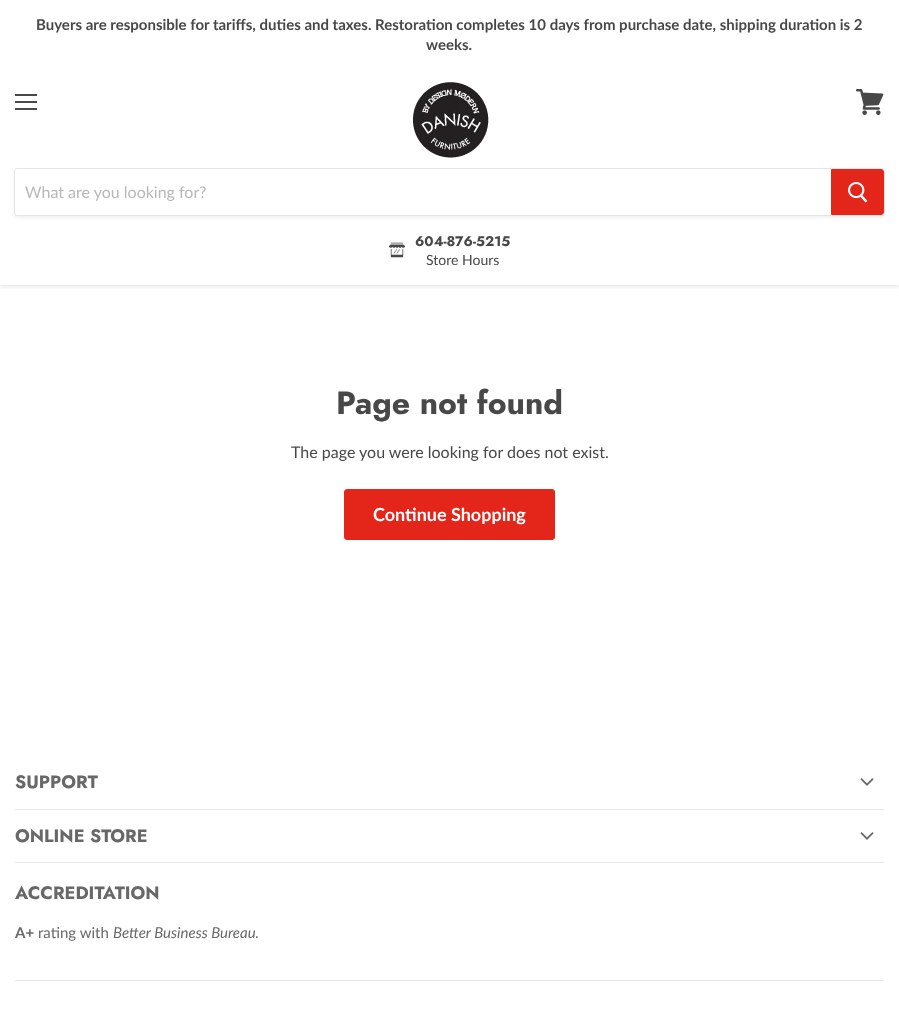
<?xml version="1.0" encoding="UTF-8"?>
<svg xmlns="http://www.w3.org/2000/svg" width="899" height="1010">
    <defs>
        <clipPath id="clip1"><rect x="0" y="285" width="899" height="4"/></clipPath>
        <filter id="blur1" x="-50%" y="-200%" width="200%" height="500%"><feGaussianBlur stdDeviation="2"/></filter>
        <clipPath id="clip2"><path d="M 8 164 H 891 V 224 H 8 Z M 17 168 H 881 C 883 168 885 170 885 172 V 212 C 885 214 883 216 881 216 H 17 C 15.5 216 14 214.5 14 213 V 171 C 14 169.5 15.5 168 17 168 Z" clip-rule="evenodd"/></clipPath>
        <filter id="blur2" x="-50%" y="-200%" width="200%" height="500%"><feGaussianBlur stdDeviation="1.5"/></filter>
    </defs>
    <rect width="100%" height="100%" fill="#FFFFFF"/>
    <g clip-path="url(#clip1)">
        <rect x="0" y="1" width="899" height="285" fill="#7F7F7F" fill-opacity="0.25" filter="url(#blur1)"/>
    </g>
    <text x="36" y="30" font-family="Lato" font-size="15" font-weight="700" fill="#484848">Buyers are responsible for tariffs, duties and taxes. Restoration completes 10 days from purchase date, shipping duration is 2</text>
    <text x="426" y="50" font-family="Lato" font-size="15" font-weight="700" fill="#484848">weeks.</text>
    <rect x="15" y="94" width="22" height="2" fill="#484848"/>
    <rect x="15" y="101" width="22" height="2" fill="#484848"/>
    <rect x="15" y="108" width="22" height="2" fill="#484848"/>
    <image x="856" y="89" width="28" height="26" href="img_01.png"/>
    <image x="413" y="82" width="76" height="76" href="img_02.png"/>
    <g clip-path="url(#clip2)">
        <rect x="14" y="170" width="871" height="48" rx="4" fill="#7F7F7F" fill-opacity="0.11" filter="url(#blur2)"/>
    </g>
    <path d="M 17 168.5 H 881 C 883 168.5 884.5 170 884.5 172 V 212 C 884.5 214 883 215.5 881 215.5 H 17 C 15.5 215.5 14.5 214.5 14.5 213 V 171 C 14.5 169.5 15.5 168.5 17 168.5 Z" fill="none" stroke="#7F7F7F" stroke-opacity="0.2"/>
    <text x="25" y="198" font-family="Lato" font-size="16" fill="#B8B8B8">What are you looking for?</text>
    <path d="M 831.5 169.5 H 881 C 882.5 169.5 883.5 170.5 883.5 172 V 212 C 883.5 213.5 882.5 214.5 881 214.5 H 831.5 Z" fill="#E32619" stroke="#E32619"/>
    <image x="848" y="182" width="20" height="21" href="img_03.png"/>
    <image x="389" y="242" width="16" height="16" href="img_04.png"/>
    <text x="415" y="246" font-family="Jost" font-size="14" font-weight="700" fill="#484848">604-876-5215</text>
    <text x="426" y="265" font-family="Lato" font-size="14" fill="#484848">Store Hours</text>
    <text x="336" y="414" font-family="Jost" font-size="32" font-weight="700" fill="#484848">Page not found</text>
    <text x="291" y="458" font-family="Lato" font-size="16" fill="#484848">The page you were looking for does not exist.</text>
    <rect x="344.5" y="489.5" width="210" height="50" rx="2.5" fill="#E32619" stroke="#E32619"/>
    <text x="373" y="521" font-family="Lato" font-size="18" font-weight="700" fill="#FFFFFF">Continue Shopping</text>
    <rect x="15" y="809" width="869" height="1" fill="#E8E8E8"/>
    <text x="15" y="788" font-family="Jost" font-size="18" font-weight="700" fill="#686868">SUPPORT</text>
    <image x="860" y="778" width="14" height="8" href="img_05.png"/>
    <rect x="15" y="862" width="869" height="1" fill="#E8E8E8"/>
    <text x="15" y="842" font-family="Jost" font-size="18" font-weight="700" fill="#686868">ONLINE STORE</text>
    <image x="860" y="832" width="14" height="8" href="img_05.png"/>
    <rect x="15" y="980" width="869" height="1" fill="#E8E8E8"/>
    <text x="15" y="899" font-family="Jost" font-size="18" font-weight="700" fill="#686868">ACCREDITATION</text>
    <text x="15" y="938" font-family="Lato" font-size="15" font-weight="700" fill="#686868">A+</text>
    <text x="38" y="938" font-family="Lato" font-size="15" fill="#686868">rating with</text>
    <text x="113" y="938" font-family="Lato" font-size="15" font-style="italic" fill="#686868">Better Business Bureau.</text>
</svg>
